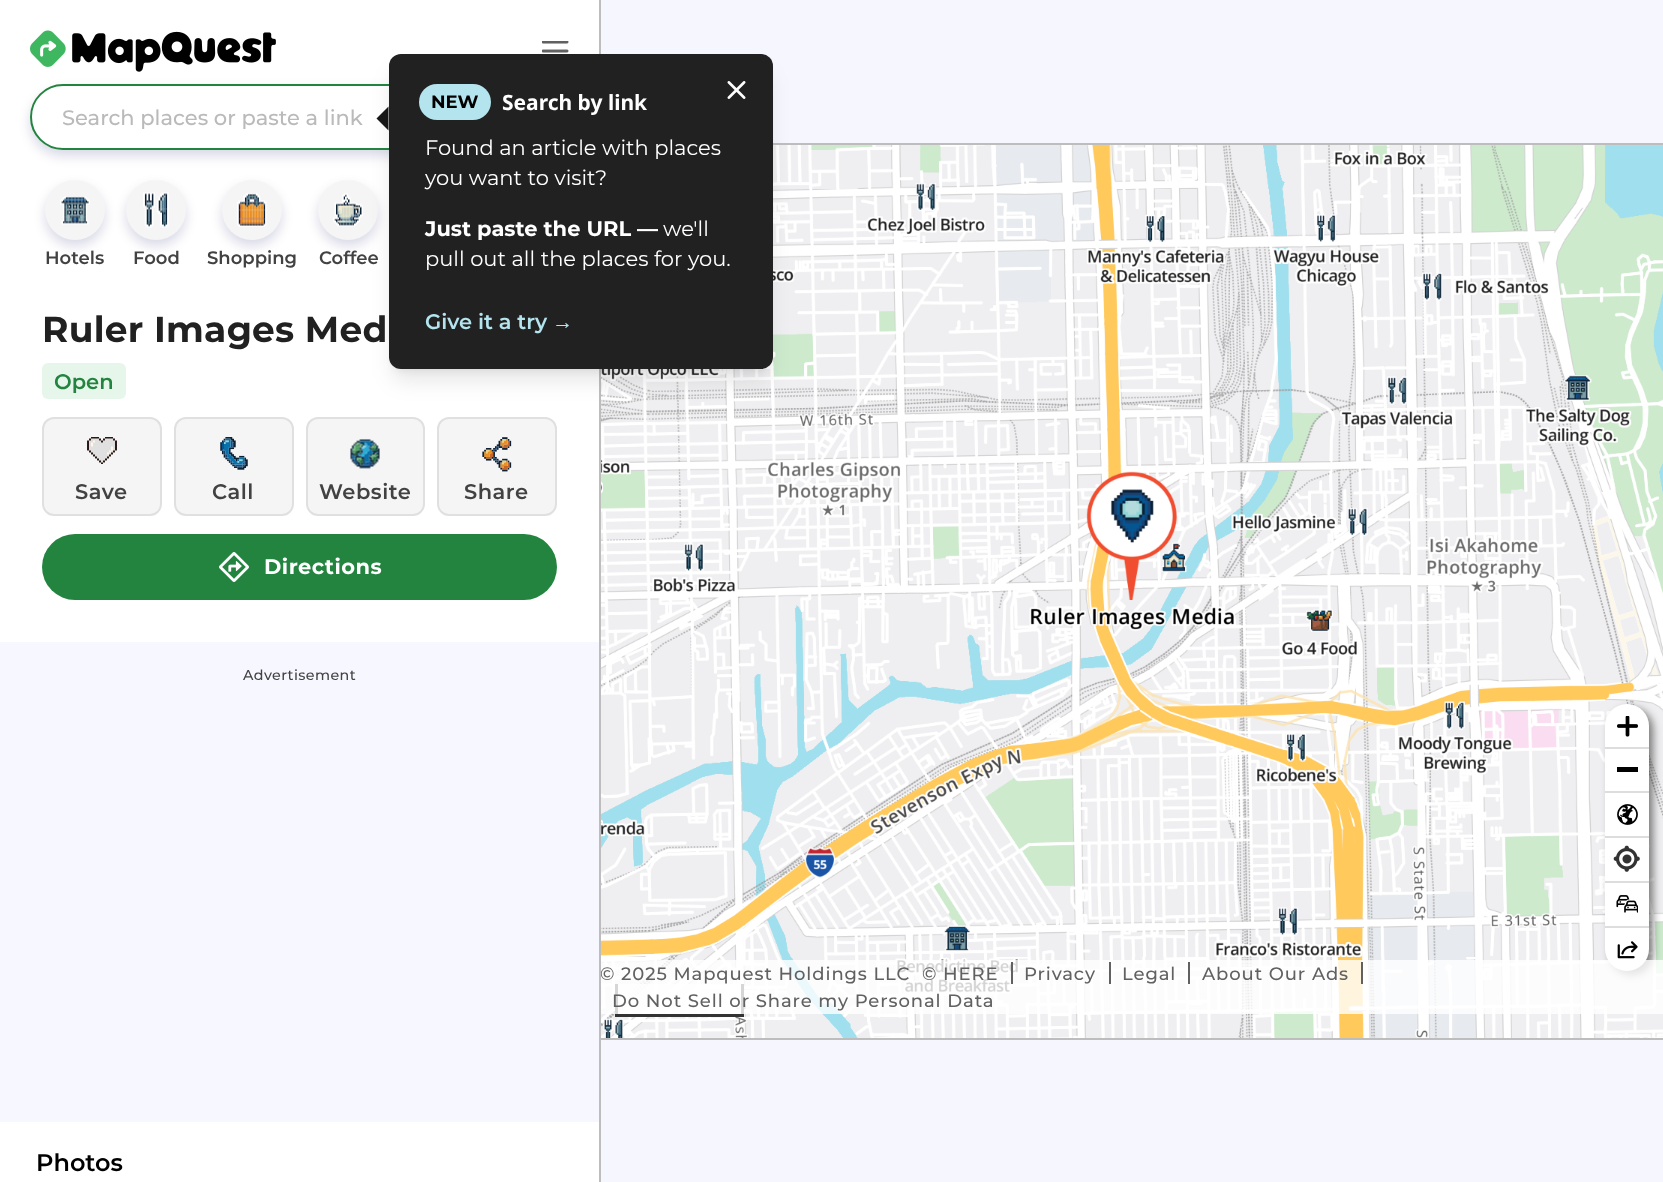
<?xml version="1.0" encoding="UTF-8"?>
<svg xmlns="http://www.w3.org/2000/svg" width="1663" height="1182">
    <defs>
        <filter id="blur1" x="-50%" y="-200%" width="200%" height="500%"><feGaussianBlur stdDeviation="4"/></filter>
        <filter id="blur2" x="-50%" y="-200%" width="200%" height="500%"><feGaussianBlur stdDeviation="6"/></filter>
        <filter id="blur3" x="-50%" y="-200%" width="200%" height="500%"><feGaussianBlur stdDeviation="4.5"/></filter>
        <filter id="blur4" x="-50%" y="-200%" width="200%" height="500%"><feGaussianBlur stdDeviation="11"/></filter>
    </defs>
    <rect width="100%" height="100%" fill="#FFFFFF"/>
    <rect x="601" y="0" width="1062" height="143" fill="#F6F6FF"/>
    <rect x="773" y="143" width="890" height="2" fill="#BDBDBD"/>
    <image x="601" y="145" width="1062" height="893" href="img_13.png"/>
    <rect x="1610" y="708" width="43" height="267" rx="21.5" fill="#000000" fill-opacity="0.5" filter="url(#blur1)"/>
    <rect x="1605" y="704" width="44" height="267" rx="22" fill="#FFFFFF"/>
    <rect x="618" y="984" width="123" height="30" fill="#FFFFFF" fill-opacity="0.75"/>
    <rect x="741" y="984" width="3" height="33" fill="#333333"/>
    <rect x="615" y="1014" width="129" height="3" fill="#333333"/>
    <rect x="615" y="984" width="3" height="33" fill="#333333"/>
    <rect x="601" y="960" width="1062" height="54" fill="#FFFFFF" fill-opacity="0.8"/>
    <text x="600" y="980" font-family="Montserrat" font-size="18" font-weight="500" letter-spacing="0.9" fill="#616161">© 2025 Mapquest Holdings LLC</text>
    <rect x="599" y="0" width="2" height="1182" fill="#BDBDBD"/>
    <image x="30" y="30" width="246" height="42" href="img_01.png"/>
    <image x="542" y="41" width="27" height="12" href="img_02.png"/>
    <rect x="30" y="90" width="539" height="66" rx="33" fill="#0D1660" fill-opacity="0.15" filter="url(#blur2)"/>
    <rect x="31" y="85" width="537" height="64" rx="32" fill="#FFFFFF" stroke="#238440" stroke-width="2"/>
    <text x="62" y="125" font-family="Montserrat" font-size="21" font-weight="500" fill="#BABABA">Search places or paste a link</text>
    <rect x="395" y="66" width="372" height="303" rx="6" fill="#000000" fill-opacity="0.1" filter="url(#blur3)"/>
    <rect x="318" y="186" width="60" height="60" rx="30" fill="#0D1660" fill-opacity="0.15" filter="url(#blur2)"/>
    <circle cx="348" cy="210" r="30" fill="#F5F5F5"/>
    <image x="333" y="193" width="30" height="34" href="img_07.png"/>
    <rect x="393" y="74" width="375" height="306" rx="8" fill="#000000" fill-opacity="0.1" filter="url(#blur4)"/>
    <rect x="389" y="54" width="384" height="315" rx="12" fill="#212121"/>
    <image x="727" y="81" width="19" height="18" href="img_03.png"/>
    <path d="M 388.5 106.5 V 130.5 L 376.5 118.5 Z" fill="#171717"/>
    <rect x="419" y="84" width="72" height="36" rx="18" fill="#B4E4EE"/>
    <text x="431" y="108" font-family="Montserrat" font-size="18" font-weight="700" fill="#000000">NEW</text>
    <text x="502" y="110" font-family="Noto Sans" font-size="21" font-weight="700" fill="#FFFFFF">Search by link</text>
    <text font-family="Montserrat" font-size="21" fill="#FFFFFF">
        <tspan x="425" y="155">Found an article with places</tspan>
        <tspan x="425" y="185">you want to visit?</tspan>
    </text>
    <text x="425" y="236" font-family="Montserrat" font-size="21" font-weight="700" fill="#FFFFFF">Just paste the URL —</text>
    <text x="663" y="236" font-family="Montserrat" font-size="21" fill="#FFFFFF">we'll</text>
    <text x="425" y="266" font-family="Montserrat" font-size="21" fill="#FFFFFF">pull out all the places for you.</text>
    <text x="425" y="329" font-family="Montserrat" font-size="21" font-weight="600" fill="#B4E4EE">Give it a try</text>
    <text x="552" y="329" font-family="Liberation Serif" font-size="21" font-weight="700" fill="#B4E4EE">→</text>
    <rect x="45" y="186" width="60" height="60" rx="30" fill="#0D1660" fill-opacity="0.15" filter="url(#blur2)"/>
    <circle cx="75" cy="210" r="30" fill="#F5F5F5"/>
    <image x="60" y="196" width="30" height="29" href="img_04.png"/>
    <text x="45" y="264" font-family="Montserrat" font-size="18" font-weight="600" fill="#424242">Hotels</text>
    <rect x="126" y="186" width="60" height="60" rx="30" fill="#0D1660" fill-opacity="0.15" filter="url(#blur2)"/>
    <circle cx="156" cy="210" r="30" fill="#F5F5F5"/>
    <image x="143" y="192" width="26" height="36" href="img_05.png"/>
    <text x="133" y="264" font-family="Montserrat" font-size="18" font-weight="600" fill="#424242">Food</text>
    <rect x="222" y="186" width="60" height="60" rx="30" fill="#0D1660" fill-opacity="0.15" filter="url(#blur2)"/>
    <circle cx="252" cy="210" r="30" fill="#F5F5F5"/>
    <image x="237" y="193" width="30" height="34" href="img_06.png"/>
    <text x="207" y="264" font-family="Montserrat" font-size="18" font-weight="600" fill="#424242">Shopping</text>
    <text x="319" y="264" font-family="Montserrat" font-size="18" font-weight="600" fill="#424242">Coffee</text>
    <text x="42" y="342" font-family="Montserrat" font-size="36" font-weight="700" letter-spacing="0.25" fill="#212121">Ruler Images Med</text>
    <rect x="42" y="363" width="84" height="36" rx="6" fill="#E7F6EB"/>
    <text x="54" y="389" font-family="Montserrat" font-size="21" font-weight="600" fill="#238440">Open</text>
    <rect x="43" y="418" width="118" height="97" rx="11" fill="#F5F5F5" stroke="#E0E0E0" stroke-width="2"/>
    <image x="87" y="437" width="30" height="27" href="img_08.png"/>
    <text x="75" y="499" font-family="Montserrat" font-size="21" font-weight="600" letter-spacing="0.5" fill="#424242">Save</text>
    <rect x="175" y="418" width="118" height="97" rx="11" fill="#F5F5F5" stroke="#E0E0E0" stroke-width="2"/>
    <image x="220" y="437" width="28" height="33" href="img_09.png"/>
    <text x="212" y="499" font-family="Montserrat" font-size="21" font-weight="600" letter-spacing="0.5" fill="#424242">Call</text>
    <rect x="307" y="418" width="117" height="97" rx="11" fill="#F5F5F5" stroke="#E0E0E0" stroke-width="2"/>
    <image x="350" y="439" width="30" height="30" href="img_10.png"/>
    <text x="319" y="499" font-family="Montserrat" font-size="21" font-weight="600" letter-spacing="0.5" fill="#424242">Website</text>
    <rect x="438" y="418" width="118" height="97" rx="11" fill="#F5F5F5" stroke="#E0E0E0" stroke-width="2"/>
    <image x="482" y="437" width="30" height="35" href="img_11.png"/>
    <text x="464" y="499" font-family="Montserrat" font-size="21" font-weight="600" letter-spacing="0.5" fill="#424242">Share</text>
    <rect x="42" y="534" width="515" height="66" rx="33" fill="#238440"/>
    <image x="219" y="552" width="30" height="30" href="img_12.png"/>
    <text x="264" y="574" font-family="Montserrat" font-size="21" font-weight="700" letter-spacing="0.5" fill="#FFFFFF">Directions</text>
    <rect x="0" y="642" width="599" height="480" fill="#F7F7FF"/>
    <text x="243" y="680" font-family="Montserrat" font-size="14.25" font-weight="500" letter-spacing="0.4" fill="#424242">Advertisement</text>
    <text x="36" y="1171" font-family="Montserrat" font-size="24" font-weight="600" fill="#000000">Photos</text>
    <rect x="1605" y="791" width="44" height="2" fill="#DDDDDD"/>
    <image x="1617" y="716" width="21" height="21" href="img_14.png"/>
    <rect x="1605" y="747" width="44" height="2" fill="#DDDDDD"/>
    <rect x="1617" y="767" width="21" height="5" fill="#000000"/>
    <rect x="1605" y="836" width="44" height="2" fill="#DDDDDD"/>
    <image x="1617" y="804" width="21" height="21" href="img_15.png"/>
    <rect x="1605" y="881" width="44" height="2" fill="#DDDDDD"/>
    <image x="1613" y="845" width="27" height="27" href="img_16.png"/>
    <rect x="1605" y="926" width="44" height="2" fill="#DDDDDD"/>
    <image x="1616" y="895" width="22" height="18" href="img_17.png"/>
    <image x="1617" y="941" width="21" height="18" href="img_18.png"/>
    <rect x="1011" y="962" width="2" height="22" fill="#616161"/>
    <text x="922" y="980" font-family="Montserrat" font-size="18" font-weight="500" letter-spacing="0.9" fill="#616161">© HERE</text>
    <rect x="1109" y="962" width="2" height="22" fill="#616161"/>
    <text x="1024" y="980" font-family="Montserrat" font-size="18" font-weight="500" letter-spacing="0.9" fill="#616161">Privacy</text>
    <rect x="1188" y="962" width="2" height="22" fill="#616161"/>
    <text x="1122" y="980" font-family="Montserrat" font-size="18" font-weight="500" letter-spacing="0.9" fill="#616161">Legal</text>
    <rect x="1361" y="962" width="2" height="22" fill="#616161"/>
    <text x="1202" y="980" font-family="Montserrat" font-size="18" font-weight="500" letter-spacing="0.9" fill="#616161">About Our Ads</text>
    <text x="612" y="1007" font-family="Montserrat" font-size="18" font-weight="500" letter-spacing="0.9" fill="#616161">Do Not Sell or Share my Personal Data</text>
    <rect x="601" y="1040" width="1062" height="142" fill="#F6F6FF"/>
    <rect x="601" y="1038" width="1062" height="2" fill="#BDBDBD"/>
</svg>
